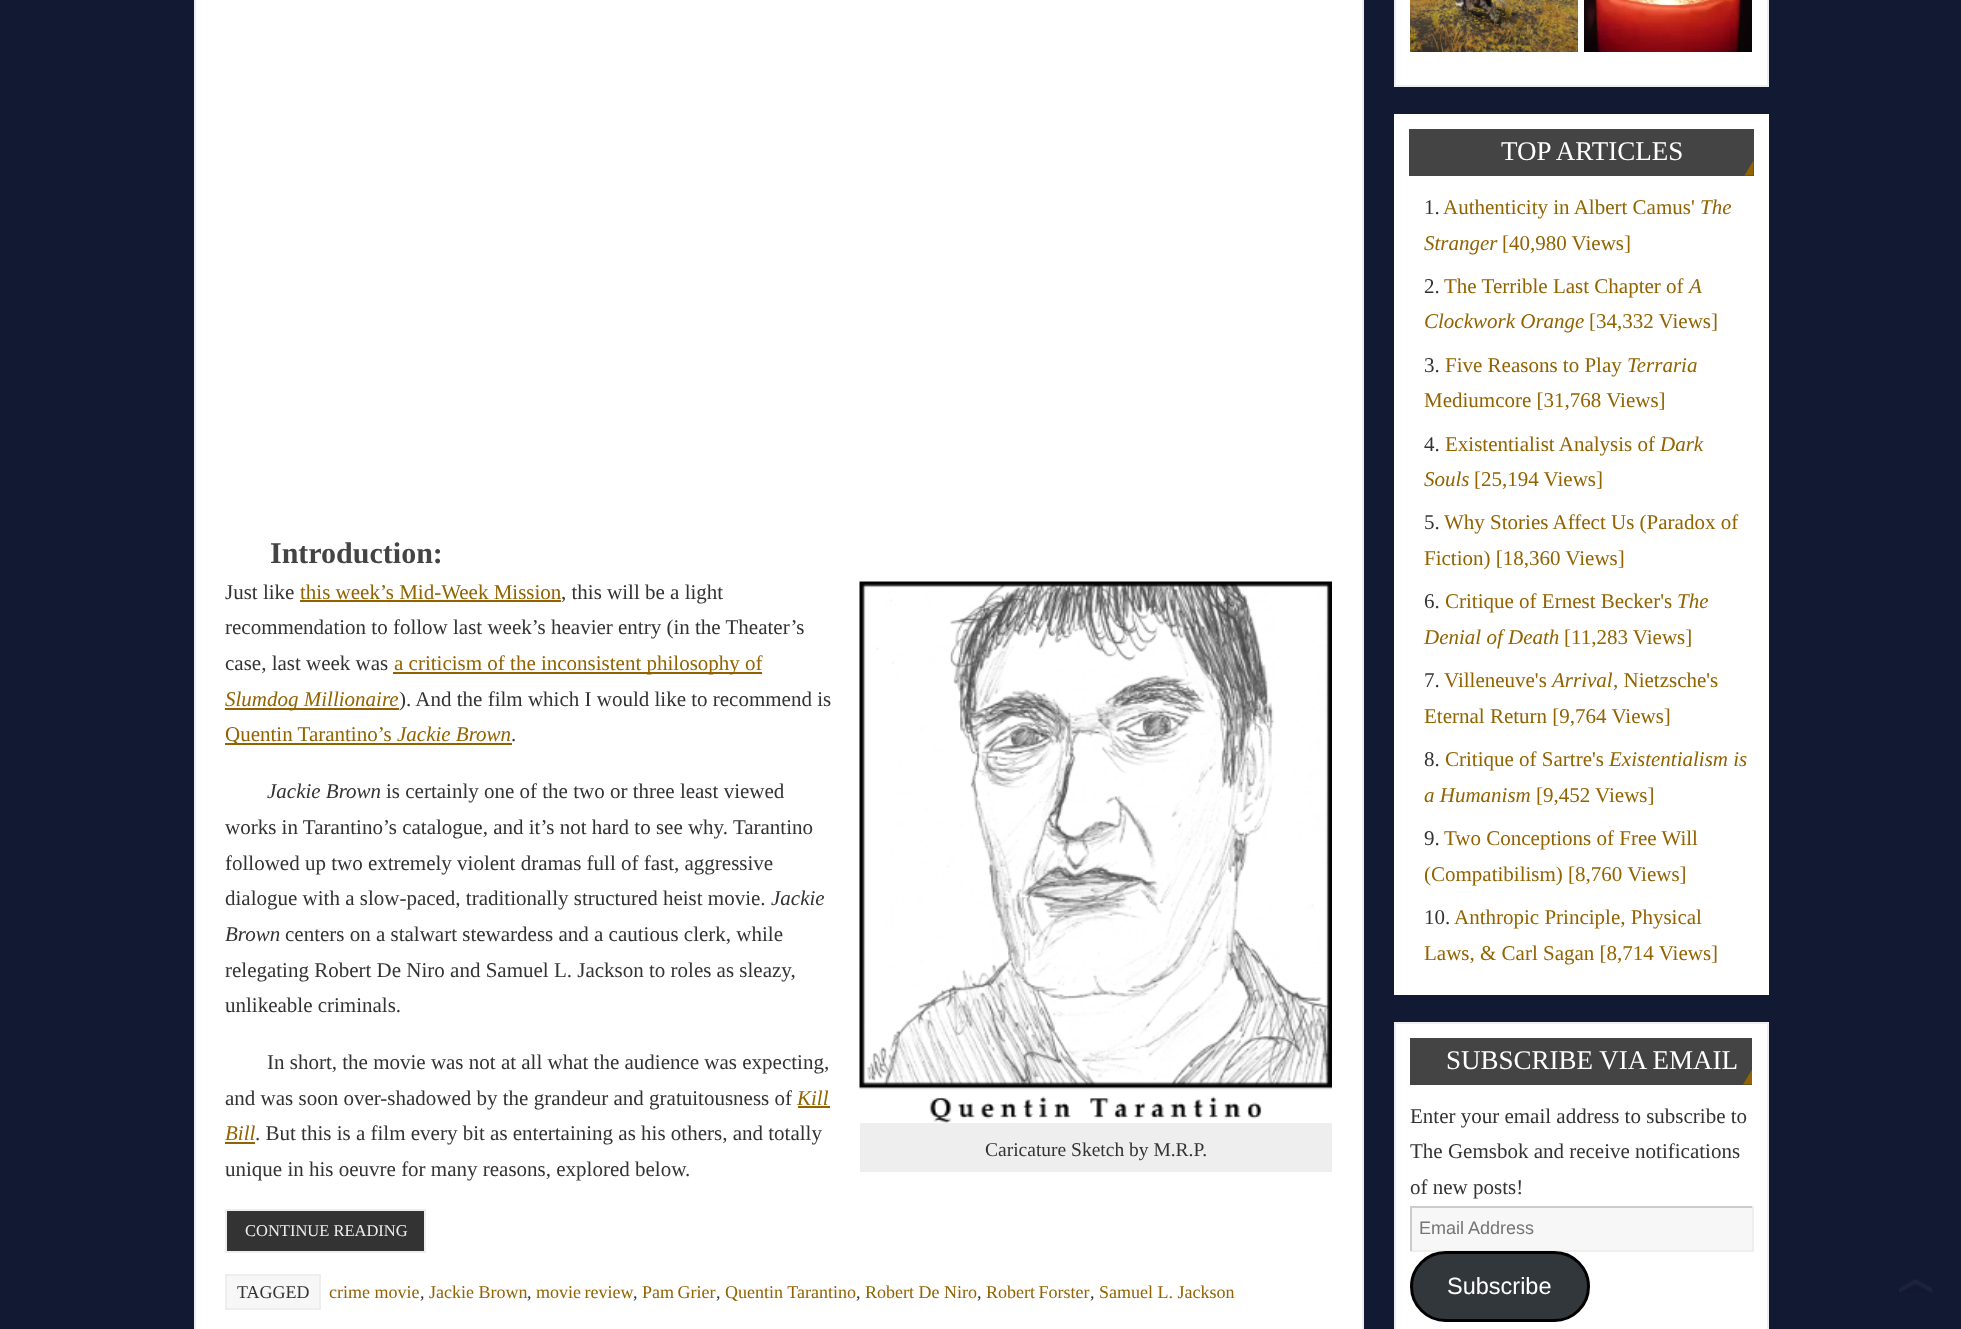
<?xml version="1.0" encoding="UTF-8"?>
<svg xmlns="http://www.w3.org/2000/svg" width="1961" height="1329">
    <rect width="100%" height="100%" fill="#121A33"/>
    <rect x="195" y="-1" width="1168" height="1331" fill="#FFFFFF" stroke="#EEEEEE" stroke-width="2"/>
    <text x="270" y="563" font-family="Liberation Serif" font-size="30" font-weight="700" fill="#444444">Introduction:</text>
    <text x="225" y="599" font-family="Liberation Serif" font-size="21" fill="#333333">Just like</text>
    <text x="300" y="599" font-family="Liberation Serif" font-size="21" fill="#926300">this week’s Mid-Week Mission</text>
    <rect x="300" y="600" width="261" height="2" fill="#926300"/>
    <text x="561" y="599" font-family="Liberation Serif" font-size="21" fill="#333333">, this will be a light</text>
    <text font-family="Liberation Serif" font-size="21" fill="#333333">
        <tspan x="225" y="634">recommendation to follow last week’s heavier entry (in the Theater’s</tspan>
        <tspan x="225" y="670">case, last week was</tspan>
    </text>
    <rect x="393" y="672" width="369" height="2" fill="#926300"/>
    <text x="394" y="670" font-family="Liberation Serif" font-size="21" fill="#926300">a criticism of the inconsistent philosophy of</text>
    <rect x="225" y="708" width="174" height="2" fill="#926300"/>
    <text x="225" y="706" font-family="Liberation Serif" font-size="21" font-style="italic" fill="#926300">Slumdog Millionaire</text>
    <text x="399" y="706" font-family="Liberation Serif" font-size="21" fill="#333333">). And the film which I would like to recommend is</text>
    <rect x="225" y="743" width="287" height="2" fill="#926300"/>
    <text x="225" y="741" font-family="Liberation Serif" font-size="21" fill="#926300">Quentin Tarantino’s</text>
    <text x="397" y="741" font-family="Liberation Serif" font-size="21" font-style="italic" fill="#926300">Jackie Brown</text>
    <text x="511" y="741" font-family="Liberation Serif" font-size="21" fill="#333333">.</text>
    <text x="267" y="798" font-family="Liberation Serif" font-size="21" font-style="italic" fill="#333333">Jackie Brown</text>
    <text x="386" y="798" font-family="Liberation Serif" font-size="21" fill="#333333">is certainly one of the two or three least viewed</text>
    <text font-family="Liberation Serif" font-size="21" fill="#333333">
        <tspan x="225" y="834">works in Tarantino’s catalogue, and it’s not hard to see why. Tarantino</tspan>
        <tspan x="225" y="870">followed up two extremely violent dramas full of fast, aggressive</tspan>
        <tspan x="225" y="905">dialogue with a slow-paced, traditionally structured heist movie.</tspan>
    </text>
    <text x="771" y="905" font-family="Liberation Serif" font-size="21" font-style="italic" fill="#333333">Jackie</text>
    <text x="225" y="941" font-family="Liberation Serif" font-size="21" font-style="italic" fill="#333333">Brown</text>
    <text x="285" y="941" font-family="Liberation Serif" font-size="21" fill="#333333">centers on a stalwart stewardess and a cautious clerk, while</text>
    <text font-family="Liberation Serif" font-size="21" fill="#333333">
        <tspan x="225" y="977">relegating Robert De Niro and Samuel L. Jackson to roles as sleazy,</tspan>
        <tspan x="225" y="1012">unlikeable criminals.</tspan>
    </text>
    <text x="267" y="1069" font-family="Liberation Serif" font-size="21" fill="#333333">In short, the movie was not at all what the audience was expecting,</text>
    <text x="225" y="1105" font-family="Liberation Serif" font-size="21" fill="#333333">and was soon over-shadowed by the grandeur and gratuitousness of</text>
    <text x="797" y="1105" font-family="Liberation Serif" font-size="21" font-style="italic" fill="#926300">Kill</text>
    <rect x="798" y="1106" width="32" height="2" fill="#926300"/>
    <text x="225" y="1140" font-family="Liberation Serif" font-size="21" font-style="italic" fill="#926300">Bill</text>
    <rect x="225" y="1142" width="30" height="2" fill="#926300"/>
    <text x="255" y="1140" font-family="Liberation Serif" font-size="21" fill="#333333">. But this is a film every bit as entertaining as his others, and totally</text>
    <text x="225" y="1176" font-family="Liberation Serif" font-size="21" fill="#333333">unique in his oeuvre for many reasons, explored below.</text>
    <rect x="860" y="582" width="472" height="590" fill="#EEEEEE"/>
    <image x="859" y="581" width="473" height="542" href="img_01.png"/>
    <text x="985" y="1156" font-family="Liberation Serif" font-size="19.5" fill="#333333">Caricature Sketch by M.R.P.</text>
    <rect x="226" y="1210" width="199" height="42" fill="#333333" stroke="#EEEEEE" stroke-width="2"/>
    <text x="245" y="1236" font-family="Liberation Serif" font-size="16.5" fill="#EEEEEE">CONTINUE READING</text>
    <rect x="226" y="1275" width="94" height="34" fill="#F7F7F7" stroke="#EEEEEE" stroke-width="2"/>
    <text x="237" y="1298" font-family="Liberation Serif" font-size="18" fill="#333333">TAGGED</text>
    <text x="329" y="1298" font-family="Liberation Serif" font-size="18" fill="#926300">crime movie</text>
    <text x="420" y="1298" font-family="Liberation Serif" font-size="18" fill="#333333">,</text>
    <text x="429" y="1298" font-family="Liberation Serif" font-size="18" fill="#926300">Jackie Brown</text>
    <text x="527" y="1298" font-family="Liberation Serif" font-size="18" fill="#333333">,</text>
    <text x="536" y="1298" word-spacing="-1" font-family="Liberation Serif" font-size="18" fill="#926300">movie review</text>
    <text x="633" y="1298" font-family="Liberation Serif" font-size="18" fill="#333333">,</text>
    <text x="642" y="1298" word-spacing="-1" font-family="Liberation Serif" font-size="18" fill="#926300">Pam Grier</text>
    <text x="716" y="1298" font-family="Liberation Serif" font-size="18" fill="#333333">,</text>
    <text x="725" y="1298" font-family="Liberation Serif" font-size="18" fill="#926300">Quentin Tarantino</text>
    <text x="856" y="1298" font-family="Liberation Serif" font-size="18" fill="#333333">,</text>
    <text x="865" y="1298" font-family="Liberation Serif" font-size="18" fill="#926300">Robert De Niro</text>
    <text x="977" y="1298" font-family="Liberation Serif" font-size="18" fill="#333333">,</text>
    <text x="986" y="1298" word-spacing="-1" font-family="Liberation Serif" font-size="18" fill="#926300">Robert Forster</text>
    <text x="1090" y="1298" font-family="Liberation Serif" font-size="18" fill="#333333">,</text>
    <text x="1099" y="1298" font-family="Liberation Serif" font-size="18" fill="#926300">Samuel L. Jackson</text>
    <rect x="1395" y="-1" width="373" height="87" fill="#FFFFFF" stroke="#EEEEEE" stroke-width="2"/>
    <image x="1410" y="0" width="168" height="52" href="img_02.png"/>
    <image x="1584" y="0" width="168" height="52" href="img_03.png"/>
    <rect x="1394" y="114" width="375" height="881" fill="#FFFFFF"/>
    <rect x="1409" y="129" width="345" height="47" fill="#444444"/>
    <text x="1501" y="160" font-family="Liberation Serif" font-size="27" fill="#FFFFFF">TOP ARTICLES</text>
    <path d="M 1753.5 175.5 H 1744.5 L 1753.5 160.5 Z" fill="#926300"/>
    <text x="1424" y="214" font-family="Liberation Serif" font-size="21" fill="#333333">1.</text>
    <text x="1443" y="214" font-family="Liberation Serif" font-size="21" fill="#926300">Authenticity in Albert Camus'</text>
    <text x="1700" y="214" font-family="Liberation Serif" font-size="21" font-style="italic" fill="#926300">The</text>
    <text x="1424" y="250" font-family="Liberation Serif" font-size="21" font-style="italic" fill="#926300">Stranger</text>
    <text x="1502" y="250" font-family="Liberation Serif" font-size="21" fill="#926300">[40,980 Views]</text>
    <text x="1424" y="293" font-family="Liberation Serif" font-size="21" fill="#333333">2.</text>
    <text x="1444" y="293" font-family="Liberation Serif" font-size="21" fill="#926300">The Terrible Last Chapter of</text>
    <text x="1689" y="293" font-family="Liberation Serif" font-size="21" font-style="italic" fill="#926300">A</text>
    <text x="1424" y="328" font-family="Liberation Serif" font-size="21" font-style="italic" fill="#926300">Clockwork Orange</text>
    <text x="1589" y="328" font-family="Liberation Serif" font-size="21" fill="#926300">[34,332 Views]</text>
    <text x="1424" y="372" font-family="Liberation Serif" font-size="21" fill="#333333">3.</text>
    <text x="1445" y="372" font-family="Liberation Serif" font-size="21" fill="#926300">Five Reasons to Play</text>
    <text x="1627" y="372" font-family="Liberation Serif" font-size="21" font-style="italic" fill="#926300">Terraria</text>
    <text x="1424" y="407" font-family="Liberation Serif" font-size="21" fill="#926300">Mediumcore [31,768 Views]</text>
    <text x="1424" y="451" font-family="Liberation Serif" font-size="21" fill="#333333">4.</text>
    <text x="1445" y="451" font-family="Liberation Serif" font-size="21" fill="#926300">Existentialist Analysis of</text>
    <text x="1660" y="451" font-family="Liberation Serif" font-size="21" font-style="italic" fill="#926300">Dark</text>
    <text x="1424" y="486" font-family="Liberation Serif" font-size="21" font-style="italic" fill="#926300">Souls</text>
    <text x="1474" y="486" font-family="Liberation Serif" font-size="21" fill="#926300">[25,194 Views]</text>
    <text x="1424" y="529" font-family="Liberation Serif" font-size="21" fill="#333333">5.</text>
    <text x="1444" y="529" font-family="Liberation Serif" font-size="21" fill="#926300">Why Stories Affect Us (Paradox of</text>
    <text x="1424" y="565" font-family="Liberation Serif" font-size="21" fill="#926300">Fiction) [18,360 Views]</text>
    <text x="1424" y="608" font-family="Liberation Serif" font-size="21" fill="#333333">6.</text>
    <text x="1445" y="608" font-family="Liberation Serif" font-size="21" fill="#926300">Critique of Ernest Becker's</text>
    <text x="1677" y="608" font-family="Liberation Serif" font-size="21" font-style="italic" fill="#926300">The</text>
    <text x="1424" y="644" font-family="Liberation Serif" font-size="21" font-style="italic" fill="#926300">Denial of Death</text>
    <text x="1564" y="644" font-family="Liberation Serif" font-size="21" fill="#926300">[11,283 Views]</text>
    <text x="1424" y="687" font-family="Liberation Serif" font-size="21" fill="#333333">7.</text>
    <text x="1444" y="687" font-family="Liberation Serif" font-size="21" fill="#926300">Villeneuve's</text>
    <text x="1552" y="687" font-family="Liberation Serif" font-size="21" font-style="italic" fill="#926300">Arrival</text>
    <text x="1613" y="687" font-family="Liberation Serif" font-size="21" fill="#926300">, Nietzsche's</text>
    <text x="1424" y="723" font-family="Liberation Serif" font-size="21" fill="#926300">Eternal Return [9,764 Views]</text>
    <text x="1424" y="766" font-family="Liberation Serif" font-size="21" fill="#333333">8.</text>
    <text x="1445" y="766" font-family="Liberation Serif" font-size="21" fill="#926300">Critique of Sartre's</text>
    <text x="1609" y="766" font-family="Liberation Serif" font-size="21" font-style="italic" fill="#926300">Existentialism is</text>
    <text x="1424" y="802" font-family="Liberation Serif" font-size="21" font-style="italic" fill="#926300">a Humanism</text>
    <text x="1536" y="802" font-family="Liberation Serif" font-size="21" fill="#926300">[9,452 Views]</text>
    <text x="1424" y="845" font-family="Liberation Serif" font-size="21" fill="#333333">9.</text>
    <text x="1444" y="845" font-family="Liberation Serif" font-size="21" fill="#926300">Two Conceptions of Free Will</text>
    <text x="1424" y="881" font-family="Liberation Serif" font-size="21" fill="#926300">(Compatibilism) [8,760 Views]</text>
    <text x="1424" y="924" font-family="Liberation Serif" font-size="21" fill="#333333">10.</text>
    <text x="1454" y="924" font-family="Liberation Serif" font-size="21" fill="#926300">Anthropic Principle, Physical</text>
    <text x="1424" y="960" font-family="Liberation Serif" font-size="21" fill="#926300">Laws, &amp; Carl Sagan [8,714 Views]</text>
    <rect x="1395" y="1023" width="373" height="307" fill="#FFFFFF" stroke="#EEEEEE" stroke-width="2"/>
    <rect x="1410" y="1038" width="342" height="47" fill="#444444"/>
    <text x="1446" y="1069" font-family="Liberation Serif" font-size="27" fill="#FFFFFF">SUBSCRIBE VIA EMAIL</text>
    <path d="M 1752 1084.5 H 1743 L 1752 1069.5 Z" fill="#926300"/>
    <text font-family="Liberation Serif" font-size="21" fill="#333333">
        <tspan x="1410" y="1123">Enter your email address to subscribe to</tspan>
        <tspan x="1410" y="1158">The Gemsbok and receive notifications</tspan>
        <tspan x="1410" y="1194">of new posts!</tspan>
    </text>
    <rect x="1412" y="1208" width="340" height="42" fill="#F7F7F7"/>
    <rect x="1410" y="1206" width="344" height="2" fill="#CCCCCC"/>
    <rect x="1752" y="1206" width="2" height="45" fill="#EEEEEE"/>
    <rect x="1410" y="1250" width="344" height="2" fill="#EEEEEE"/>
    <rect x="1410" y="1206" width="2" height="45" fill="#CCCCCC"/>
    <text x="1419" y="1234" font-family="Liberation Sans" font-size="18" fill="#757575">Email Address</text>
    <rect x="1411.5" y="1252.5" width="177" height="68" rx="34" fill="#32373C" stroke="#000000" stroke-width="3"/>
    <text x="1447" y="1294" font-family="Liberation Sans" font-size="23.5" fill="#FFFFFF">Subscribe</text>
    <image x="1899" y="1279" width="33" height="14" href="img_04.png"/>
</svg>
